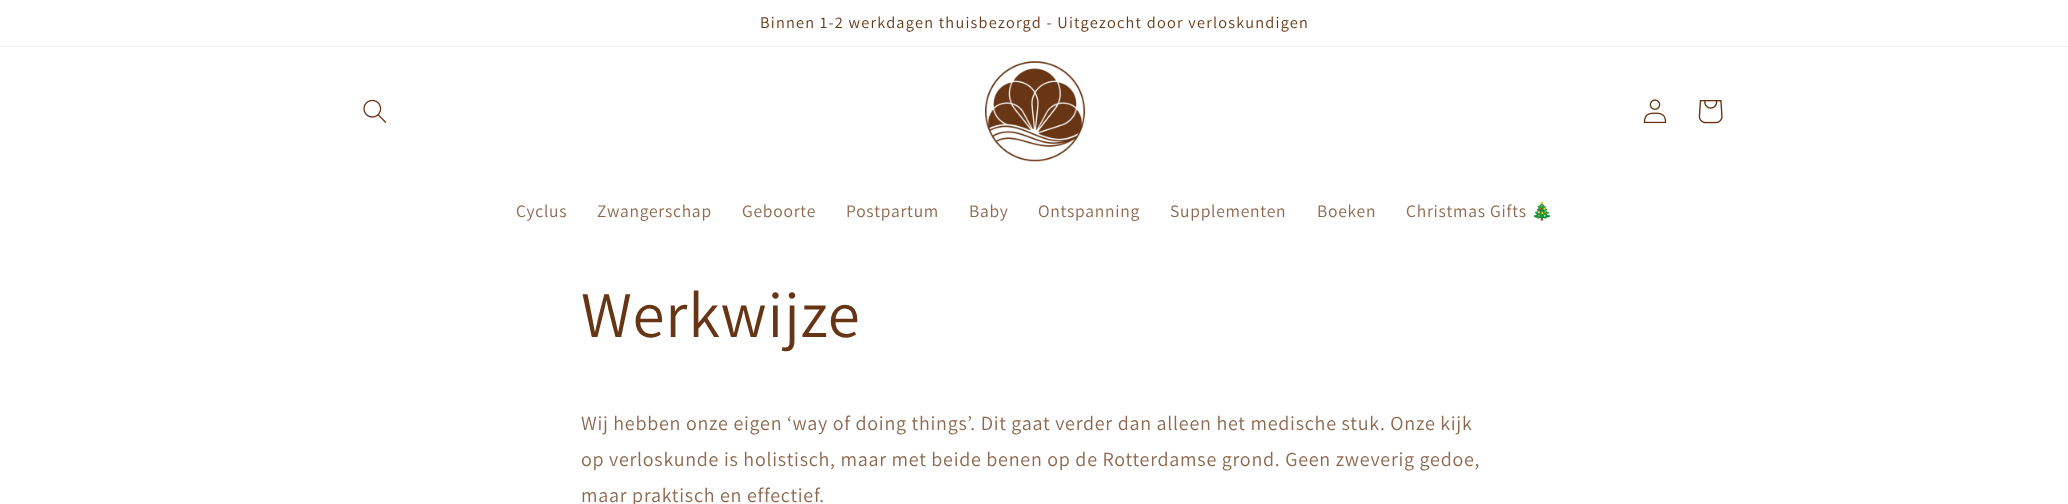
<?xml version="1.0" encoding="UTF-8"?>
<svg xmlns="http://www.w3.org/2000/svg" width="2068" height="504">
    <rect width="100%" height="100%" fill="#FFFFFF"/>
    <rect x="0" y="46" width="2068" height="1" fill="#F3EFEC"/>
    <text x="760" y="28" font-family="Assistant" font-size="16.25" letter-spacing="1.25" fill="#673514">Binnen 1-2 werkdagen thuisbezorgd - Uitgezocht door verloskundigen</text>
    <image x="363" y="99" width="24" height="24" href="img_01.png"/>
    <image x="985" y="61" width="100" height="101" href="img_02.png"/>
    <image x="1643" y="99" width="24" height="25" href="img_03.png"/>
    <image x="1698" y="100" width="25" height="24" href="img_04.png"/>
    <text x="516" y="217" font-family="Assistant" font-size="17.5" letter-spacing="0.75" fill="#8D684F">Cyclus</text>
    <text x="597" y="217" font-family="Assistant" font-size="17.5" letter-spacing="0.75" fill="#8D684F">Zwangerschap</text>
    <text x="742" y="217" font-family="Assistant" font-size="17.5" letter-spacing="0.75" fill="#8D684F">Geboorte</text>
    <text x="846" y="217" font-family="Assistant" font-size="17.5" letter-spacing="0.75" fill="#8D684F">Postpartum</text>
    <text x="969" y="217" font-family="Assistant" font-size="17.5" letter-spacing="0.75" fill="#8D684F">Baby</text>
    <text x="1038" y="217" font-family="Assistant" font-size="17.5" letter-spacing="0.75" fill="#8D684F">Ontspanning</text>
    <text x="1170" y="217" font-family="Assistant" font-size="17.5" letter-spacing="0.75" fill="#8D684F">Supplementen</text>
    <text x="1317" y="217" font-family="Assistant" font-size="17.5" letter-spacing="0.75" fill="#8D684F">Boeken</text>
    <text x="1406" y="217" font-family="Assistant" font-size="17.5" letter-spacing="0.75" fill="#8D684F">Christmas Gifts</text>
    <text x="1531" y="217" font-family="Noto Color Emoji" font-size="17.5" letter-spacing="0.75" fill="#8D684F">🎄</text>
    <text x="581" y="337" font-family="Assistant" font-size="65" letter-spacing="0.75" fill="#673514">Werkwijze</text>
    <text font-family="Assistant" font-size="20" letter-spacing="0.75" fill="#8D684F">
        <tspan x="581" y="430">Wij hebben onze eigen ‘way of doing things’. Dit gaat verder dan alleen het medische stuk. Onze kijk</tspan>
        <tspan x="581" y="466">op verloskunde is holistisch, maar met beide benen op de Rotterdamse grond. Geen zweverig gedoe,</tspan>
        <tspan x="581" y="502">maar praktisch en effectief.</tspan>
    </text>
</svg>
